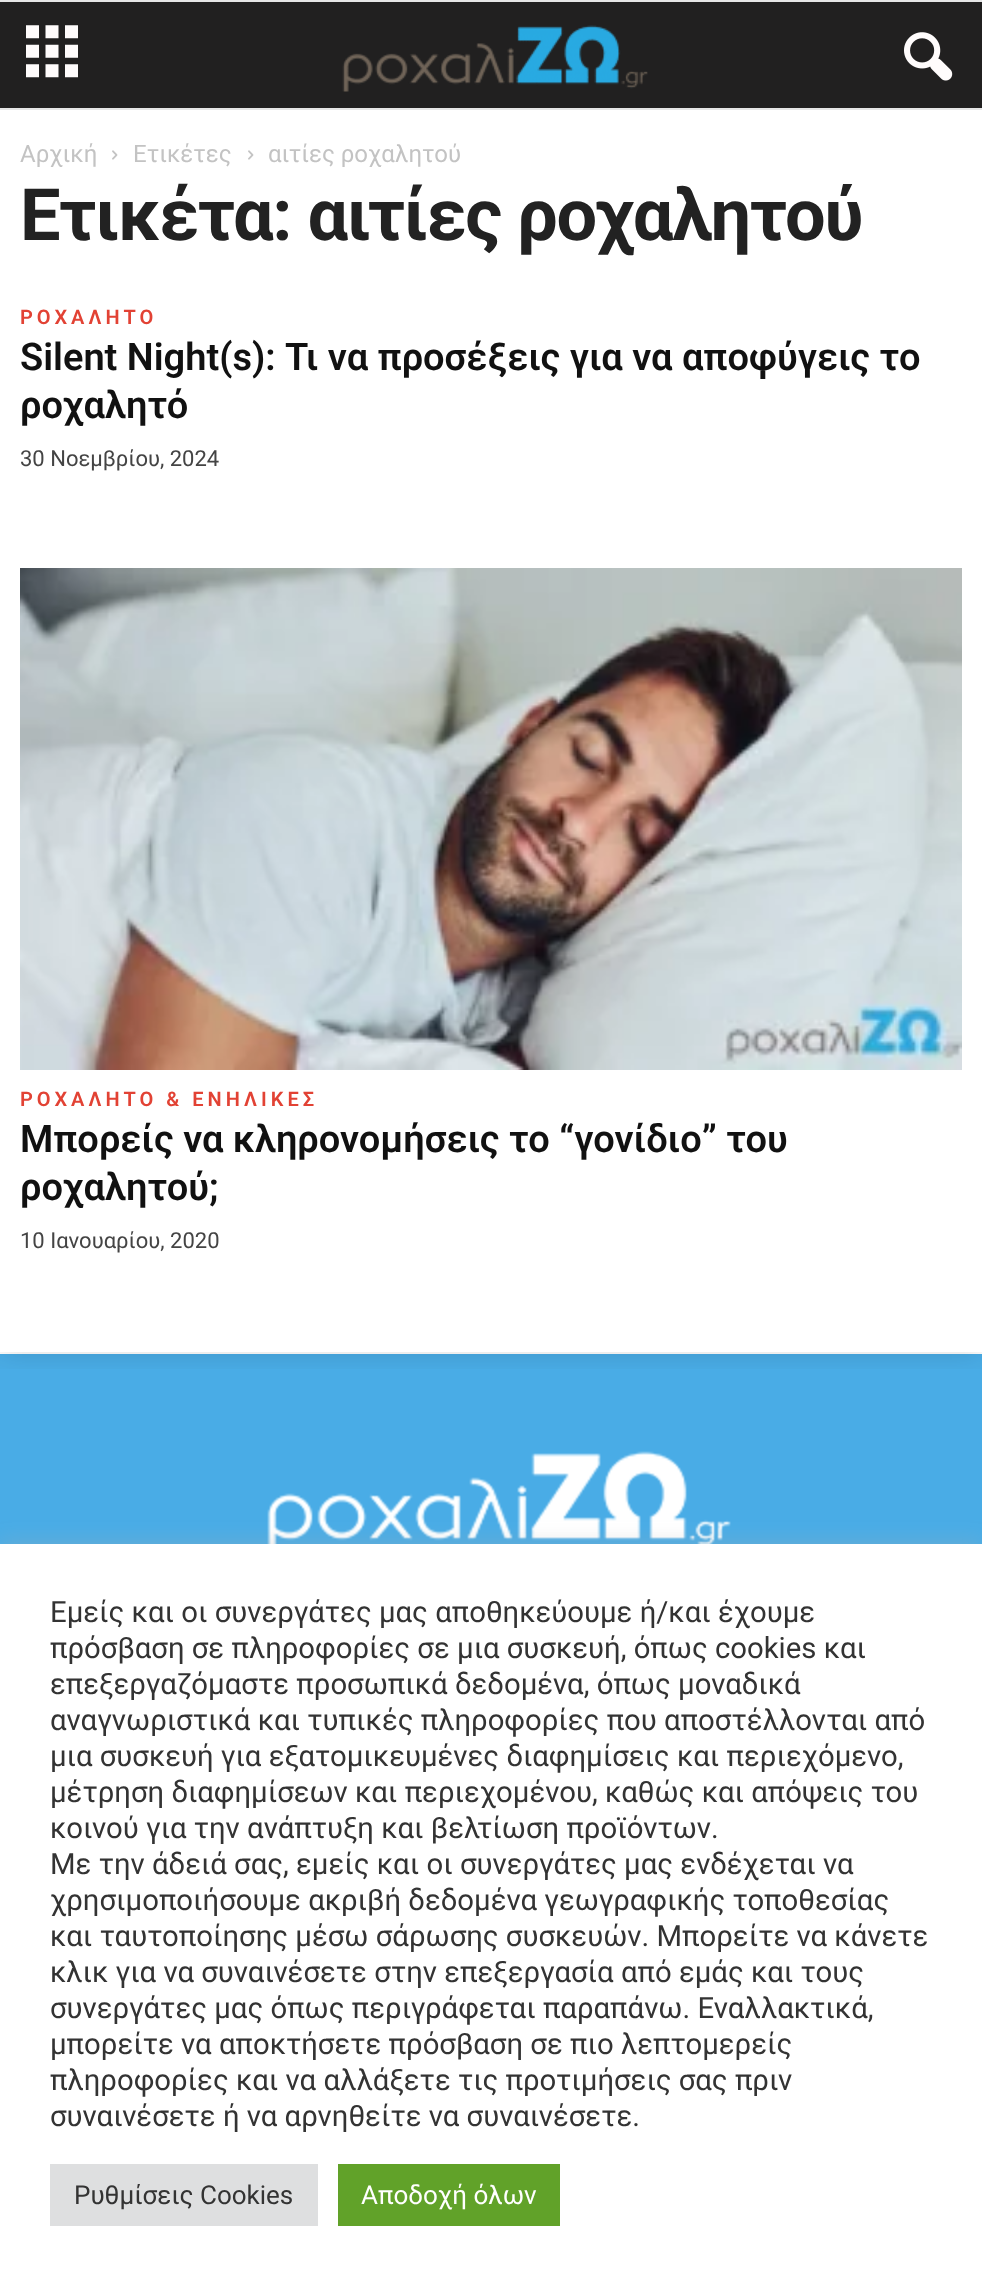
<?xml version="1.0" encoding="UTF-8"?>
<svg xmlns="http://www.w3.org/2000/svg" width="982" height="2286">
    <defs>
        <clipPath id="clip1"><rect x="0" y="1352" width="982" height="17"/></clipPath>
        <filter id="blur1" x="-50%" y="-200%" width="200%" height="500%"><feGaussianBlur stdDeviation="15"/></filter>
        <filter id="blur2" x="-50%" y="-200%" width="200%" height="500%"><feGaussianBlur stdDeviation="10"/></filter>
    </defs>
    <rect width="100%" height="100%" fill="#FFFFFF"/>
    <rect x="0" y="1354" width="982" height="190" fill="#49ACE6"/>
    <g clip-path="url(#clip1)">
        <rect x="0" y="106" width="982" height="1246" fill="#000000" fill-opacity="0.15" filter="url(#blur1)"/>
    </g>
    <rect x="0" y="2" width="982" height="106" fill="#212020"/>
    <rect x="0" y="0" width="982" height="2" fill="#E6E6E6"/>
    <rect x="0" y="108" width="982" height="2" fill="#E6E6E6"/>
    <image x="26" y="25" width="52" height="53" href="img_01.png"/>
    <image x="342" y="25" width="306" height="67" href="img_02.png"/>
    <image x="904" y="32" width="49" height="49" href="img_03.png"/>
    <text x="20" y="162" font-family="Roboto" font-size="24" fill="#C3C3C3">Αρχική</text>
    <image x="112" y="150" width="6" height="10" href="img_04.png"/>
    <text x="133" y="162" font-family="Roboto" font-size="24" fill="#C3C3C3">Ετικέτες</text>
    <image x="248" y="150" width="6" height="10" href="img_04.png"/>
    <text x="268" y="162" font-family="Roboto" font-size="24" fill="#C3C3C3">αιτίες ροχαλητού</text>
    <text x="20" y="240" font-family="Roboto" font-size="72" font-weight="700" letter-spacing="-1.4" fill="#222222">Ετικέτα: αιτίες ροχαλητού</text>
    <text x="20" y="324" font-family="Roboto" font-size="20" font-weight="600" letter-spacing="4" fill="#E24234">ΡΟΧΑΛΗΤΟ</text>
    <text font-family="Roboto" font-size="38" font-weight="600" fill="#111111">
        <tspan x="20" y="370">Silent Night(s): Τι να προσέξεις για να αποφύγεις το</tspan>
        <tspan x="20" y="418">ροχαλητό</tspan>
    </text>
    <text x="20" y="466" font-family="Roboto" font-size="22" fill="#444444">30 Νοεμβρίου, 2024</text>
    <image x="20" y="568" width="942" height="502" href="img_05.png"/>
    <text x="20" y="1106" font-family="Roboto" font-size="20" font-weight="600" letter-spacing="4" fill="#E24234">ΡΟΧΑΛΗΤΟ &amp; ΕΝΗΛΙΚΕΣ</text>
    <text font-family="Roboto" font-size="38" font-weight="600" fill="#111111">
        <tspan x="20" y="1152">Μπορείς να κληρονομήσεις το “γονίδιο” του</tspan>
        <tspan x="20" y="1200">ροχαλητού;</tspan>
    </text>
    <text x="20" y="1248" font-family="Roboto" font-size="22" fill="#444444">10 Ιανουαρίου, 2020</text>
    <image x="267" y="1451" width="464" height="93" href="img_06.png"/>
    <rect x="0" y="1542" width="982" height="742" fill="#ACABAB" fill-opacity="0.3" filter="url(#blur2)"/>
    <rect x="0" y="1544" width="982" height="742" fill="#FFFFFF"/>
    <text font-family="Roboto" font-size="29.3" fill="#333333">
        <tspan x="50" y="1622">Εμείς και οι συνεργάτες μας αποθηκεύουμε ή/και έχουμε</tspan>
        <tspan x="50" y="1658">πρόσβαση σε πληροφορίες σε μια συσκευή, όπως cookies και</tspan>
        <tspan x="50" y="1694">επεξεργαζόμαστε προσωπικά δεδομένα, όπως μοναδικά</tspan>
        <tspan x="50" y="1730">αναγνωριστικά και τυπικές πληροφορίες που αποστέλλονται από</tspan>
        <tspan x="50" y="1766">μια συσκευή για εξατομικευμένες διαφημίσεις και περιεχόμενο,</tspan>
        <tspan x="50" y="1802">μέτρηση διαφημίσεων και περιεχομένου, καθώς και απόψεις του</tspan>
        <tspan x="50" y="1838">κοινού για την ανάπτυξη και βελτίωση προϊόντων.</tspan>
        <tspan x="50" y="1874">Με την άδειά σας, εμείς και οι συνεργάτες μας ενδέχεται να</tspan>
        <tspan x="50" y="1910">χρησιμοποιήσουμε ακριβή δεδομένα γεωγραφικής τοποθεσίας</tspan>
        <tspan x="50" y="1946">και ταυτοποίησης μέσω σάρωσης συσκευών. Μπορείτε να κάνετε</tspan>
        <tspan x="50" y="1982">κλικ για να συναινέσετε στην επεξεργασία από εμάς και τους</tspan>
        <tspan x="50" y="2018">συνεργάτες μας όπως περιγράφεται παραπάνω. Εναλλακτικά,</tspan>
        <tspan x="50" y="2054">μπορείτε να αποκτήσετε πρόσβαση σε πιο λεπτομερείς</tspan>
        <tspan x="50" y="2090">πληροφορίες και να αλλάξετε τις προτιμήσεις σας πριν</tspan>
        <tspan x="50" y="2126">συναινέσετε ή να αρνηθείτε να συναινέσετε.</tspan>
    </text>
    <rect x="50" y="2164" width="268" height="62" fill="#DEDFE0"/>
    <text x="74" y="2204" font-family="Roboto" font-size="26" fill="#333333">Ρυθμίσεις Cookies</text>
    <rect x="338" y="2164" width="222" height="62" fill="#61A229"/>
    <text x="361" y="2204" font-family="Roboto" font-size="26" fill="#FFFFFF">Αποδοχή όλων</text>
</svg>
